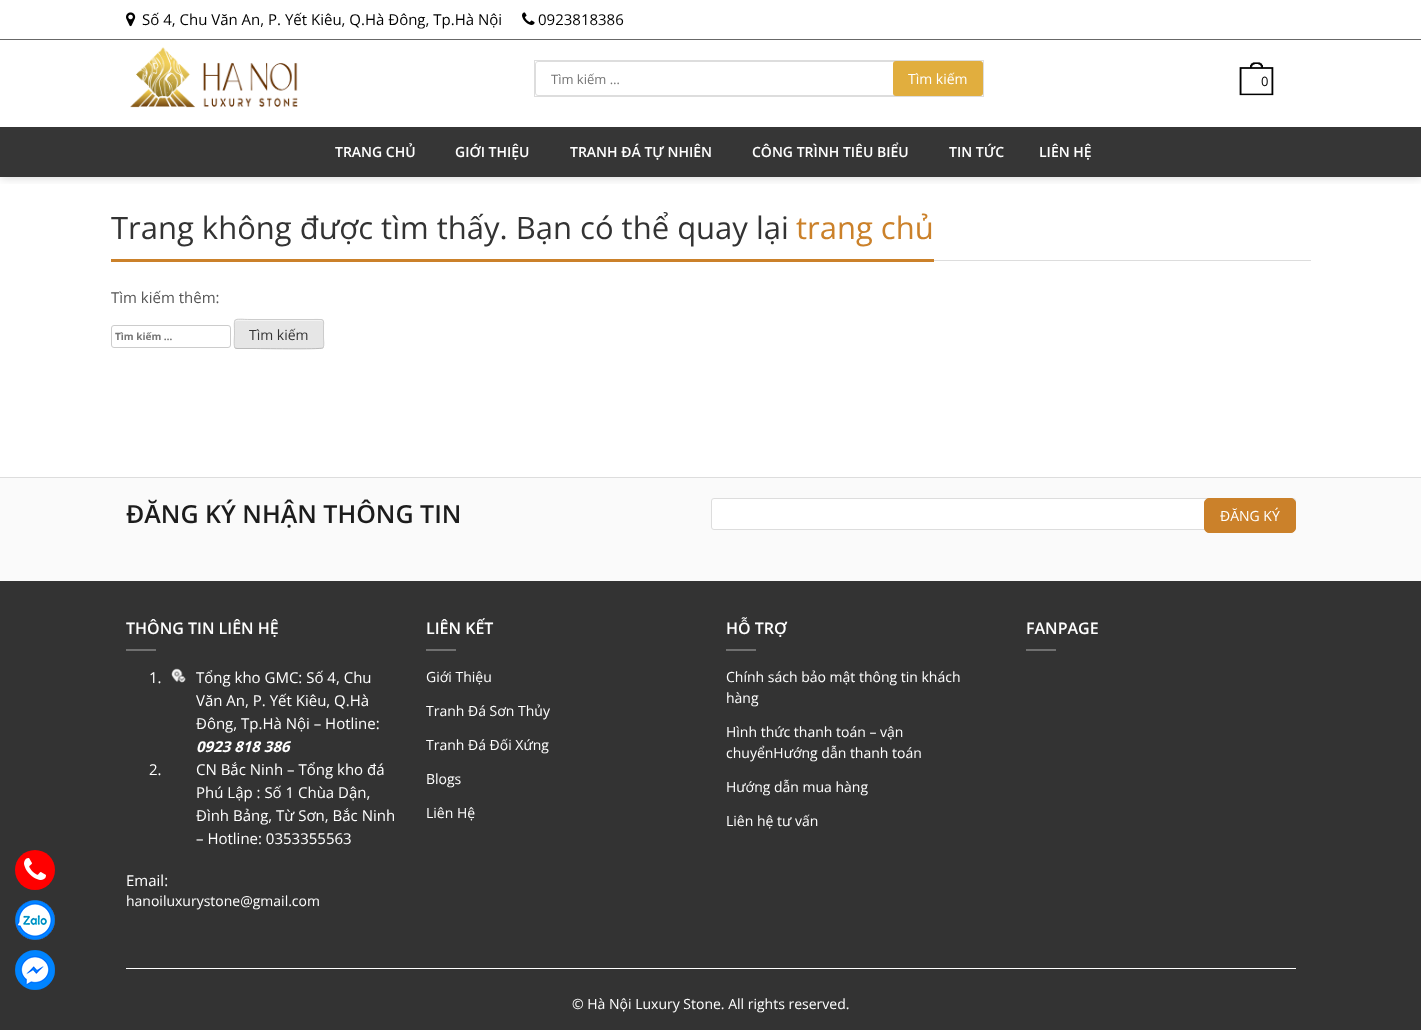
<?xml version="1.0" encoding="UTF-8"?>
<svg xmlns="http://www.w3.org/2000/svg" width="1421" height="1030">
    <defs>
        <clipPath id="clip1"><rect x="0" y="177" width="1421" height="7"/></clipPath>
        <filter id="blur1" x="-50%" y="-200%" width="200%" height="500%"><feGaussianBlur stdDeviation="5"/></filter>
    </defs>
    <rect width="100%" height="100%" fill="#FFFFFF"/>
    <g clip-path="url(#clip1)">
        <rect x="1" y="1" width="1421" height="177" fill="#000000" fill-opacity="0.16" filter="url(#blur1)"/>
    </g>
    <rect x="0" y="39" width="1421" height="1" fill="#686868"/>
    <image x="126" y="12" width="10" height="15" href="img_01.png"/>
    <text x="142" y="25" font-family="Open Sans" font-size="15" fill="#000000">Số 4, Chu Văn An, P. Yết Kiêu, Q.Hà Đông, Tp.Hà Nội</text>
    <image x="522" y="12" width="13" height="13" href="img_02.png"/>
    <text x="538" y="25" font-family="Open Sans" font-size="15" fill="#000000">0923818386</text>
    <image x="130" y="47" width="168" height="61" href="img_03.png"/>
    <rect x="534.5" y="60.5" width="449" height="36" fill="none" stroke="#DDDDDD"/>
    <rect x="535.5" y="61.5" width="447" height="34" rx="2.5" fill="none" stroke="#DDDDDD"/>
    <text x="551" y="84" font-family="Open Sans" font-size="13" fill="#757575">Tìm kiếm …</text>
    <rect x="893" y="61" width="90" height="35" rx="3" fill="#E1AE3E"/>
    <text x="908" y="84" font-family="Open Sans" font-size="14" fill="#FFFFFF">Tìm kiếm</text>
    <image x="1239" y="62" width="35" height="34" href="img_04.png"/>
    <text x="1261" y="86" font-family="Open Sans" font-size="13" fill="#000000">0</text>
    <rect x="0" y="127" width="1421" height="50" fill="#363636"/>
    <text x="335" y="157" font-family="Open Sans" font-size="14" font-weight="600" fill="#FFFFFF">TRANG CHỦ</text>
    <text x="455" y="157" font-family="Open Sans" font-size="14" font-weight="600" fill="#FFFFFF">GIỚI THIỆU</text>
    <text x="570" y="157" font-family="Open Sans" font-size="14" font-weight="600" fill="#FFFFFF">TRANH ĐÁ TỰ NHIÊN</text>
    <text x="752" y="157" font-family="Open Sans" font-size="14" font-weight="600" fill="#FFFFFF">CÔNG TRÌNH TIÊU BIỂU</text>
    <text x="949" y="157" font-family="Open Sans" font-size="14" font-weight="600" fill="#FFFFFF">TIN TỨC</text>
    <text x="1039" y="157" font-family="Open Sans" font-size="14" font-weight="600" fill="#FFFFFF">LIÊN HỆ</text>
    <rect x="934" y="260" width="377" height="1" fill="#DDDDDD"/>
    <rect x="111" y="259" width="823" height="3" fill="#CB812A"/>
    <text x="111" y="239" font-family="Open Sans" font-size="31" fill="#333333">Trang không được tìm thấy. Bạn có thể quay lại</text>
    <text x="796" y="239" font-family="Open Sans" font-size="31" fill="#CB812A">trang chủ</text>
    <text x="111" y="303" font-family="Open Sans" font-size="15" fill="#555555">Tìm kiếm thêm:</text>
    <rect x="111.5" y="325.5" width="119" height="22" rx="2.5" fill="none" stroke="#CCCCCC"/>
    <text x="115" y="340" font-family="Open Sans" font-size="10" font-weight="700" fill="#757575">Tìm kiếm …</text>
    <rect x="234" y="319" width="90" height="30" rx="3" fill="#E6E6E6"/>
    <path d="M 237 321 H 321 C 322 321 323 322 323 323 C 323 316 309 320 307 320 H 251 C 249 320 235 316 235 323 C 235 322 236 321 237 321 Z" fill="#F3F3F3"/>
    <path d="M 323 348 H 322.5 C 320.5 349.5 258.5 348.5 251 348.5 H 237 L 235 348" fill="none" stroke="#BBBBBB"/>
    <path d="M 235 348 C 233.5 346 234.5 336.5 234.5 334 C 234.5 316 231.5 319.5 251 319.5 H 321 C 324.5 319.5 323.5 324 323.5 326 V 338 C 323.5 340 324.5 346 323 348" fill="none" stroke="#CCCCCC"/>
    <text x="249" y="340" font-family="Open Sans" font-size="14" fill="#333333">Tìm kiếm</text>
    <rect x="0" y="478" width="1421" height="103" fill="#FAFAFA"/>
    <rect x="0" y="477" width="1421" height="1" fill="#DDDDDD"/>
    <text x="126" y="523" font-family="Open Sans" font-size="25" font-weight="600" fill="#1C1C1C">ĐĂNG KÝ NHẬN THÔNG TIN</text>
    <rect x="711.5" y="498.5" width="584" height="31" rx="2.5" fill="#FFFFFF" stroke="#DDDDDD"/>
    <rect x="1204.5" y="498.5" width="91" height="34" rx="4.5" fill="#CB812A" stroke="#CB812A"/>
    <text x="1220" y="521" font-family="Open Sans" font-size="14" fill="#FFFFFF">ĐĂNG KÝ</text>
    <rect x="0" y="581" width="1421" height="449" fill="#333333"/>
    <circle cx="35" cy="870" r="20" fill="#FF0000"/>
    <image x="24" y="858" width="22" height="22" href="img_05.png"/>
    <image x="15" y="900" width="40" height="40" href="img_06.png"/>
    <image x="15" y="950" width="40" height="40" href="img_07.png"/>
    <text x="126" y="634" font-family="Open Sans" font-size="16" font-weight="600" fill="#FFFFFF">THÔNG TIN LIÊN HỆ</text>
    <rect x="126" y="649" width="30" height="2" fill="#707070"/>
    <text x="149" y="683" font-family="Open Sans" font-size="15" fill="#FFFFFF">1.</text>
    <image x="171" y="668" width="15" height="15" href="img_08.png"/>
    <text font-family="Open Sans" font-size="15" fill="#FFFFFF">
        <tspan x="196" y="683">Tổng kho GMC: Số 4, Chu</tspan>
        <tspan x="196" y="706">Văn An, P. Yết Kiêu, Q.Hà</tspan>
        <tspan x="196" y="729">Đông, Tp.Hà Nội – Hotline:</tspan>
    </text>
    <text x="196" y="752" font-family="Open Sans" font-size="15" font-weight="700" font-style="italic" fill="#FFFFFF">0923 818 386</text>
    <text x="149" y="775" font-family="Open Sans" font-size="15" fill="#FFFFFF">2.</text>
    <text font-family="Open Sans" font-size="15" fill="#FFFFFF">
        <tspan x="196" y="775">CN Bắc Ninh – Tổng kho đá</tspan>
        <tspan x="196" y="798">Phú Lập : Số 1 Chùa Dận,</tspan>
        <tspan x="196" y="821">Đình Bảng, Từ Sơn, Bắc Ninh</tspan>
        <tspan x="196" y="844">– Hotline: 0353355563</tspan>
    </text>
    <text x="126" y="886" font-family="Open Sans" font-size="15" fill="#FFFFFF">Email:</text>
    <text x="126" y="906" font-family="Open Sans" font-size="14" fill="#FFFFFF">hanoiluxurystone@gmail.com</text>
    <text x="426" y="634" font-family="Open Sans" font-size="16" font-weight="600" fill="#FFFFFF">LIÊN KẾT</text>
    <rect x="426" y="649" width="30" height="2" fill="#707070"/>
    <text x="426" y="682" font-family="Open Sans" font-size="14" fill="#FFFFFF">Giới Thiệu</text>
    <text x="426" y="716" font-family="Open Sans" font-size="14" fill="#FFFFFF">Tranh Đá Sơn Thủy</text>
    <text x="426" y="750" font-family="Open Sans" font-size="14" fill="#FFFFFF">Tranh Đá Đối Xứng</text>
    <text x="426" y="784" font-family="Open Sans" font-size="14" fill="#FFFFFF">Blogs</text>
    <text x="426" y="818" font-family="Open Sans" font-size="14" fill="#FFFFFF">Liên Hệ</text>
    <text x="726" y="634" font-family="Open Sans" font-size="16" font-weight="600" fill="#FFFFFF">HỖ TRỢ</text>
    <rect x="726" y="649" width="30" height="2" fill="#707070"/>
    <text font-family="Open Sans" font-size="14" fill="#FFFFFF">
        <tspan x="726" y="682">Chính sách bảo mật thông tin khách</tspan>
        <tspan x="726" y="703">hàng</tspan>
    </text>
    <text font-family="Open Sans" font-size="14" fill="#FFFFFF">
        <tspan x="726" y="737">Hình thức thanh toán – vận</tspan>
        <tspan x="726" y="758">chuyểnHướng dẫn thanh toán</tspan>
    </text>
    <text x="726" y="792" font-family="Open Sans" font-size="14" fill="#FFFFFF">Hướng dẫn mua hàng</text>
    <text x="726" y="826" font-family="Open Sans" font-size="14" fill="#FFFFFF">Liên hệ tư vấn</text>
    <text x="1026" y="634" font-family="Open Sans" font-size="16" font-weight="600" fill="#FFFFFF">FANPAGE</text>
    <rect x="1026" y="649" width="30" height="2" fill="#707070"/>
    <rect x="126" y="968" width="1170" height="1" fill="#FFFFFF"/>
    <text x="572" y="1009" font-family="Open Sans" font-size="14" fill="#FFFFFF">© Hà Nội Luxury Stone. All rights reserved.</text>
</svg>
